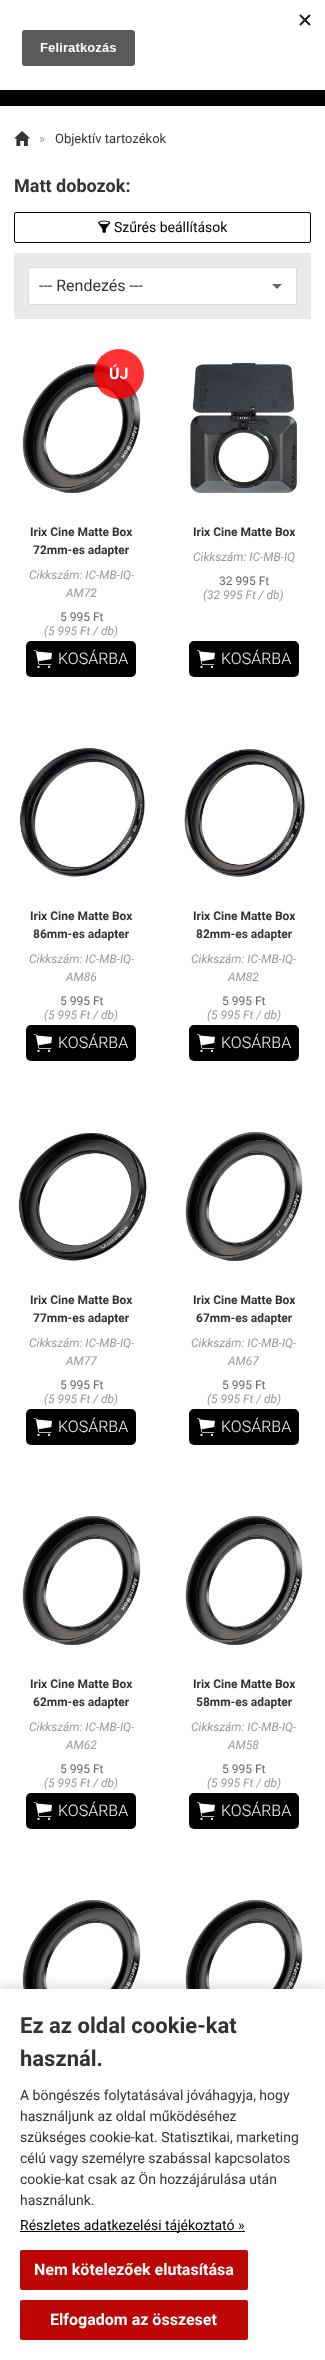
<?xml version="1.0" encoding="UTF-8"?>
<svg xmlns="http://www.w3.org/2000/svg" width="325" height="2360">
    <defs>
        <filter id="blur1" x="-50%" y="-200%" width="200%" height="500%"><feGaussianBlur stdDeviation="5"/></filter>
    </defs>
    <rect width="100%" height="100%" fill="#FFFFFF"/>
    <image x="22" y="14" width="289" height="52" href="img_01.png"/>
    <rect x="0" y="90" width="325" height="16" fill="#000000"/>
    <image x="14" y="131" width="17" height="15" href="img_02.png"/>
    <text x="39" y="143" font-family="Roboto" font-size="13" fill="#999999">»</text>
    <text x="55" y="143" font-family="Roboto" font-size="13" fill="#333333">Objektív tartozékok</text>
    <text x="14" y="192" font-family="Roboto" font-size="18" font-weight="700" fill="#333333">Matt dobozok:</text>
    <rect x="14.5" y="212.5" width="296" height="30" rx="1.5" fill="none" stroke="#000000"/>
    <image x="98" y="220" width="13" height="13" href="img_03.png"/>
    <text x="114" y="232" font-family="Roboto" font-size="14" fill="#000000">Szűrés beállítások</text>
    <rect x="14" y="253" width="297" height="66" fill="#EAEAEA"/>
    <rect x="28.5" y="267.5" width="268" height="37" rx="1.5" fill="#FFFFFF" stroke="#DADADA"/>
    <text x="39" y="291" font-family="Roboto" font-size="16" fill="#333333">--- Rendezés ---</text>
    <path d="M 272 284 H 282 L 277 289 Z" fill="#666666"/>
    <image x="22" y="362" width="119" height="134" href="img_04.png"/>
    <circle cx="119" cy="374" r="25" fill="#FF0000" fill-opacity="0.8"/>
    <text x="109" y="379" font-family="Roboto" font-size="16" font-weight="700" fill="#FFFFFF">ÚJ</text>
    <text x="30" y="536" font-family="Roboto" font-size="12" font-weight="700" fill="#333333">Irix Cine Matte Box</text>
    <text x="33" y="554" font-family="Roboto" font-size="12" font-weight="700" fill="#333333">72mm-es adapter</text>
    <text x="29" y="579" font-family="Roboto" font-size="12" font-style="italic" fill="#999999">Cikkszám: IC-MB-IQ-</text>
    <text x="66" y="597" font-family="Roboto" font-size="12" font-style="italic" fill="#999999">AM72</text>
    <text x="60" y="621" font-family="Roboto" font-size="12" fill="#666666">5 995 Ft</text>
    <text x="44" y="635" font-family="Roboto" font-size="12" font-style="italic" fill="#999999">(5 995 Ft / db)</text>
    <rect x="26" y="641" width="110" height="36" rx="5" fill="#000000"/>
    <image x="34" y="650" width="18" height="18" href="img_05.png"/>
    <text x="58" y="664" font-family="Roboto" font-size="16" font-weight="300" fill="#FFFFFF">KOSÁRBA</text>
    <image x="190" y="361" width="108" height="135" href="img_06.png"/>
    <text x="193" y="536" font-family="Roboto" font-size="12" font-weight="700" fill="#333333">Irix Cine Matte Box</text>
    <text x="193" y="561" font-family="Roboto" font-size="12" font-style="italic" fill="#999999">Cikkszám: IC-MB-IQ</text>
    <text x="219" y="585" font-family="Roboto" font-size="12" fill="#666666">32 995 Ft</text>
    <text x="203" y="599" font-family="Roboto" font-size="12" font-style="italic" fill="#999999">(32 995 Ft / db)</text>
    <rect x="189" y="641" width="110" height="36" rx="5" fill="#000000"/>
    <image x="197" y="650" width="18" height="18" href="img_05.png"/>
    <text x="221" y="664" font-family="Roboto" font-size="16" font-weight="300" fill="#FFFFFF">KOSÁRBA</text>
    <image x="19" y="746" width="126" height="132" href="img_07.png"/>
    <text x="30" y="920" font-family="Roboto" font-size="12" font-weight="700" fill="#333333">Irix Cine Matte Box</text>
    <text x="33" y="938" font-family="Roboto" font-size="12" font-weight="700" fill="#333333">86mm-es adapter</text>
    <text x="29" y="963" font-family="Roboto" font-size="12" font-style="italic" fill="#999999">Cikkszám: IC-MB-IQ-</text>
    <text x="66" y="981" font-family="Roboto" font-size="12" font-style="italic" fill="#999999">AM86</text>
    <text x="60" y="1005" font-family="Roboto" font-size="12" fill="#666666">5 995 Ft</text>
    <text x="44" y="1019" font-family="Roboto" font-size="12" font-style="italic" fill="#999999">(5 995 Ft / db)</text>
    <rect x="26" y="1025" width="110" height="36" rx="5" fill="#000000"/>
    <image x="34" y="1034" width="18" height="18" href="img_05.png"/>
    <text x="58" y="1048" font-family="Roboto" font-size="16" font-weight="300" fill="#FFFFFF">KOSÁRBA</text>
    <image x="183" y="747" width="122" height="132" href="img_08.png"/>
    <text x="193" y="920" font-family="Roboto" font-size="12" font-weight="700" fill="#333333">Irix Cine Matte Box</text>
    <text x="196" y="938" font-family="Roboto" font-size="12" font-weight="700" fill="#333333">82mm-es adapter</text>
    <text x="191" y="963" font-family="Roboto" font-size="12" font-style="italic" fill="#999999">Cikkszám: IC-MB-IQ-</text>
    <text x="228" y="981" font-family="Roboto" font-size="12" font-style="italic" fill="#999999">AM82</text>
    <text x="222" y="1005" font-family="Roboto" font-size="12" fill="#666666">5 995 Ft</text>
    <text x="207" y="1019" font-family="Roboto" font-size="12" font-style="italic" fill="#999999">(5 995 Ft / db)</text>
    <rect x="189" y="1025" width="110" height="36" rx="5" fill="#000000"/>
    <image x="197" y="1034" width="18" height="18" href="img_05.png"/>
    <text x="221" y="1048" font-family="Roboto" font-size="16" font-weight="300" fill="#FFFFFF">KOSÁRBA</text>
    <image x="18" y="1130" width="130" height="133" href="img_09.png"/>
    <text x="30" y="1304" font-family="Roboto" font-size="12" font-weight="700" fill="#333333">Irix Cine Matte Box</text>
    <text x="33" y="1322" font-family="Roboto" font-size="12" font-weight="700" fill="#333333">77mm-es adapter</text>
    <text x="29" y="1347" font-family="Roboto" font-size="12" font-style="italic" fill="#999999">Cikkszám: IC-MB-IQ-</text>
    <text x="66" y="1365" font-family="Roboto" font-size="12" font-style="italic" fill="#999999">AM77</text>
    <text x="60" y="1389" font-family="Roboto" font-size="12" fill="#666666">5 995 Ft</text>
    <text x="44" y="1403" font-family="Roboto" font-size="12" font-style="italic" fill="#999999">(5 995 Ft / db)</text>
    <rect x="26" y="1409" width="110" height="36" rx="5" fill="#000000"/>
    <image x="34" y="1418" width="18" height="18" href="img_05.png"/>
    <text x="58" y="1432" font-family="Roboto" font-size="16" font-weight="300" fill="#FFFFFF">KOSÁRBA</text>
    <image x="185" y="1130" width="118" height="133" href="img_10.png"/>
    <text x="193" y="1304" font-family="Roboto" font-size="12" font-weight="700" fill="#333333">Irix Cine Matte Box</text>
    <text x="196" y="1322" font-family="Roboto" font-size="12" font-weight="700" fill="#333333">67mm-es adapter</text>
    <text x="191" y="1347" font-family="Roboto" font-size="12" font-style="italic" fill="#999999">Cikkszám: IC-MB-IQ-</text>
    <text x="228" y="1365" font-family="Roboto" font-size="12" font-style="italic" fill="#999999">AM67</text>
    <text x="222" y="1389" font-family="Roboto" font-size="12" fill="#666666">5 995 Ft</text>
    <text x="207" y="1403" font-family="Roboto" font-size="12" font-style="italic" fill="#999999">(5 995 Ft / db)</text>
    <rect x="189" y="1409" width="110" height="36" rx="5" fill="#000000"/>
    <image x="197" y="1418" width="18" height="18" href="img_05.png"/>
    <text x="221" y="1432" font-family="Roboto" font-size="16" font-weight="300" fill="#FFFFFF">KOSÁRBA</text>
    <image x="22" y="1514" width="119" height="134" href="img_04.png"/>
    <text x="30" y="1688" font-family="Roboto" font-size="12" font-weight="700" fill="#333333">Irix Cine Matte Box</text>
    <text x="33" y="1706" font-family="Roboto" font-size="12" font-weight="700" fill="#333333">62mm-es adapter</text>
    <text x="29" y="1731" font-family="Roboto" font-size="12" font-style="italic" fill="#999999">Cikkszám: IC-MB-IQ-</text>
    <text x="66" y="1749" font-family="Roboto" font-size="12" font-style="italic" fill="#999999">AM62</text>
    <text x="60" y="1773" font-family="Roboto" font-size="12" fill="#666666">5 995 Ft</text>
    <text x="44" y="1787" font-family="Roboto" font-size="12" font-style="italic" fill="#999999">(5 995 Ft / db)</text>
    <rect x="26" y="1793" width="110" height="36" rx="5" fill="#000000"/>
    <image x="34" y="1802" width="18" height="18" href="img_05.png"/>
    <text x="58" y="1816" font-family="Roboto" font-size="16" font-weight="300" fill="#FFFFFF">KOSÁRBA</text>
    <image x="185" y="1514" width="118" height="133" href="img_10.png"/>
    <text x="193" y="1688" font-family="Roboto" font-size="12" font-weight="700" fill="#333333">Irix Cine Matte Box</text>
    <text x="196" y="1706" font-family="Roboto" font-size="12" font-weight="700" fill="#333333">58mm-es adapter</text>
    <text x="191" y="1731" font-family="Roboto" font-size="12" font-style="italic" fill="#999999">Cikkszám: IC-MB-IQ-</text>
    <text x="228" y="1749" font-family="Roboto" font-size="12" font-style="italic" fill="#999999">AM58</text>
    <text x="222" y="1773" font-family="Roboto" font-size="12" fill="#666666">5 995 Ft</text>
    <text x="207" y="1787" font-family="Roboto" font-size="12" font-style="italic" fill="#999999">(5 995 Ft / db)</text>
    <rect x="189" y="1793" width="110" height="36" rx="5" fill="#000000"/>
    <image x="197" y="1802" width="18" height="18" href="img_05.png"/>
    <text x="221" y="1816" font-family="Roboto" font-size="16" font-weight="300" fill="#FFFFFF">KOSÁRBA</text>
    <image x="22" y="1898" width="119" height="91" href="img_11.png"/>
    <image x="185" y="1898" width="118" height="91" href="img_12.png"/>
    <rect x="0" y="1984" width="325" height="371" fill="#000000" fill-opacity="0.1" filter="url(#blur1)"/>
    <rect x="0" y="1989" width="325" height="371" fill="#FFFFFF"/>
    <text font-family="Roboto" font-size="22" font-weight="700" fill="#333333">
        <tspan x="20" y="2033">Ez az oldal cookie-kat</tspan>
        <tspan x="20" y="2066">használ.</tspan>
    </text>
    <text font-family="Roboto" font-size="14" fill="#333333">
        <tspan x="20" y="2100">A böngészés folytatásával jóváhagyja, hogy</tspan>
        <tspan x="20" y="2121">használjunk az oldal működéséhez</tspan>
        <tspan x="20" y="2142">szükséges cookie-kat. Statisztikai, marketing</tspan>
        <tspan x="20" y="2163">célú vagy személyre szabással kapcsolatos</tspan>
        <tspan x="20" y="2184">cookie-kat csak az Ön hozzájárulása után</tspan>
        <tspan x="20" y="2205">használunk.</tspan>
    </text>
    <rect x="20" y="2231" width="225" height="1" fill="#000000"/>
    <text x="20" y="2230" font-family="Roboto" font-size="14" fill="#000000">Részletes adatkezelési tájékoztató »</text>
    <rect x="20" y="2250" width="228" height="40" rx="2" fill="#BD0606"/>
    <text x="34" y="2275" font-family="Roboto" font-size="16" font-weight="700" fill="#FFFFFF">Nem kötelezőek elutasítása</text>
    <rect x="20" y="2300" width="228" height="40" rx="2" fill="#BD0606"/>
    <text x="50" y="2325" font-family="Roboto" font-size="16" font-weight="700" fill="#FFFFFF">Elfogadom az összeset</text>
</svg>
